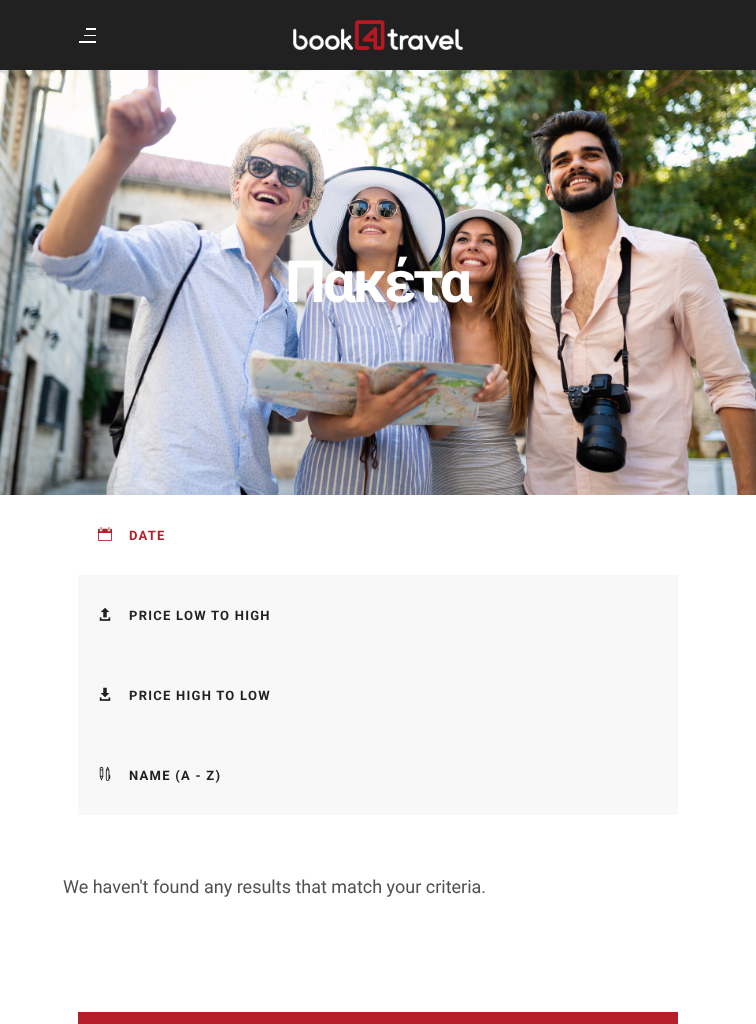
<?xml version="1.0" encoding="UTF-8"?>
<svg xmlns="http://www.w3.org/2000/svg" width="756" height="1024">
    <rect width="100%" height="100%" fill="#FFFFFF"/>
    <rect x="0" y="0" width="756" height="70" fill="#212121"/>
    <rect x="86" y="28" width="10" height="2" fill="#FFFFFF"/>
    <rect x="84" y="35" width="12" height="1" fill="#FFFFFF"/>
    <rect x="79" y="41" width="17" height="2" fill="#FFFFFF"/>
    <image x="293" y="20" width="170" height="30" href="img_01.png"/>
    <image x="0" y="70" width="756" height="425" href="img_02.png"/>
    <text x="285" y="302" font-family="Roboto" font-size="58" font-weight="700" letter-spacing="-3" fill="#FFFFFF">Πακέτα</text>
    <rect x="78" y="575" width="600" height="240" fill="#F8F8F8"/>
    <image x="98" y="526" width="14" height="15" href="img_03.png"/>
    <text x="129" y="540" font-family="Roboto" font-size="13" font-weight="700" letter-spacing="1.25" fill="#B51F2C">DATE</text>
    <image x="99" y="607" width="12" height="14" href="img_04.png"/>
    <text x="129" y="620" font-family="Roboto" font-size="13" font-weight="700" letter-spacing="1.25" fill="#212121">PRICE LOW TO HIGH</text>
    <image x="99" y="687" width="12" height="14" href="img_05.png"/>
    <text x="129" y="700" font-family="Roboto" font-size="13" font-weight="700" letter-spacing="1.25" fill="#212121">PRICE HIGH TO LOW</text>
    <image x="99" y="766" width="12" height="15" href="img_06.png"/>
    <text x="129" y="780" font-family="Roboto" font-size="13" font-weight="700" letter-spacing="1.25" fill="#212121">NAME (A - Z)</text>
    <text x="63" y="893" font-family="Roboto" font-size="18" fill="#505050">We haven't found any results that match your criteria.</text>
    <rect x="78" y="1012" width="600" height="12" fill="#B51F2C"/>
</svg>
